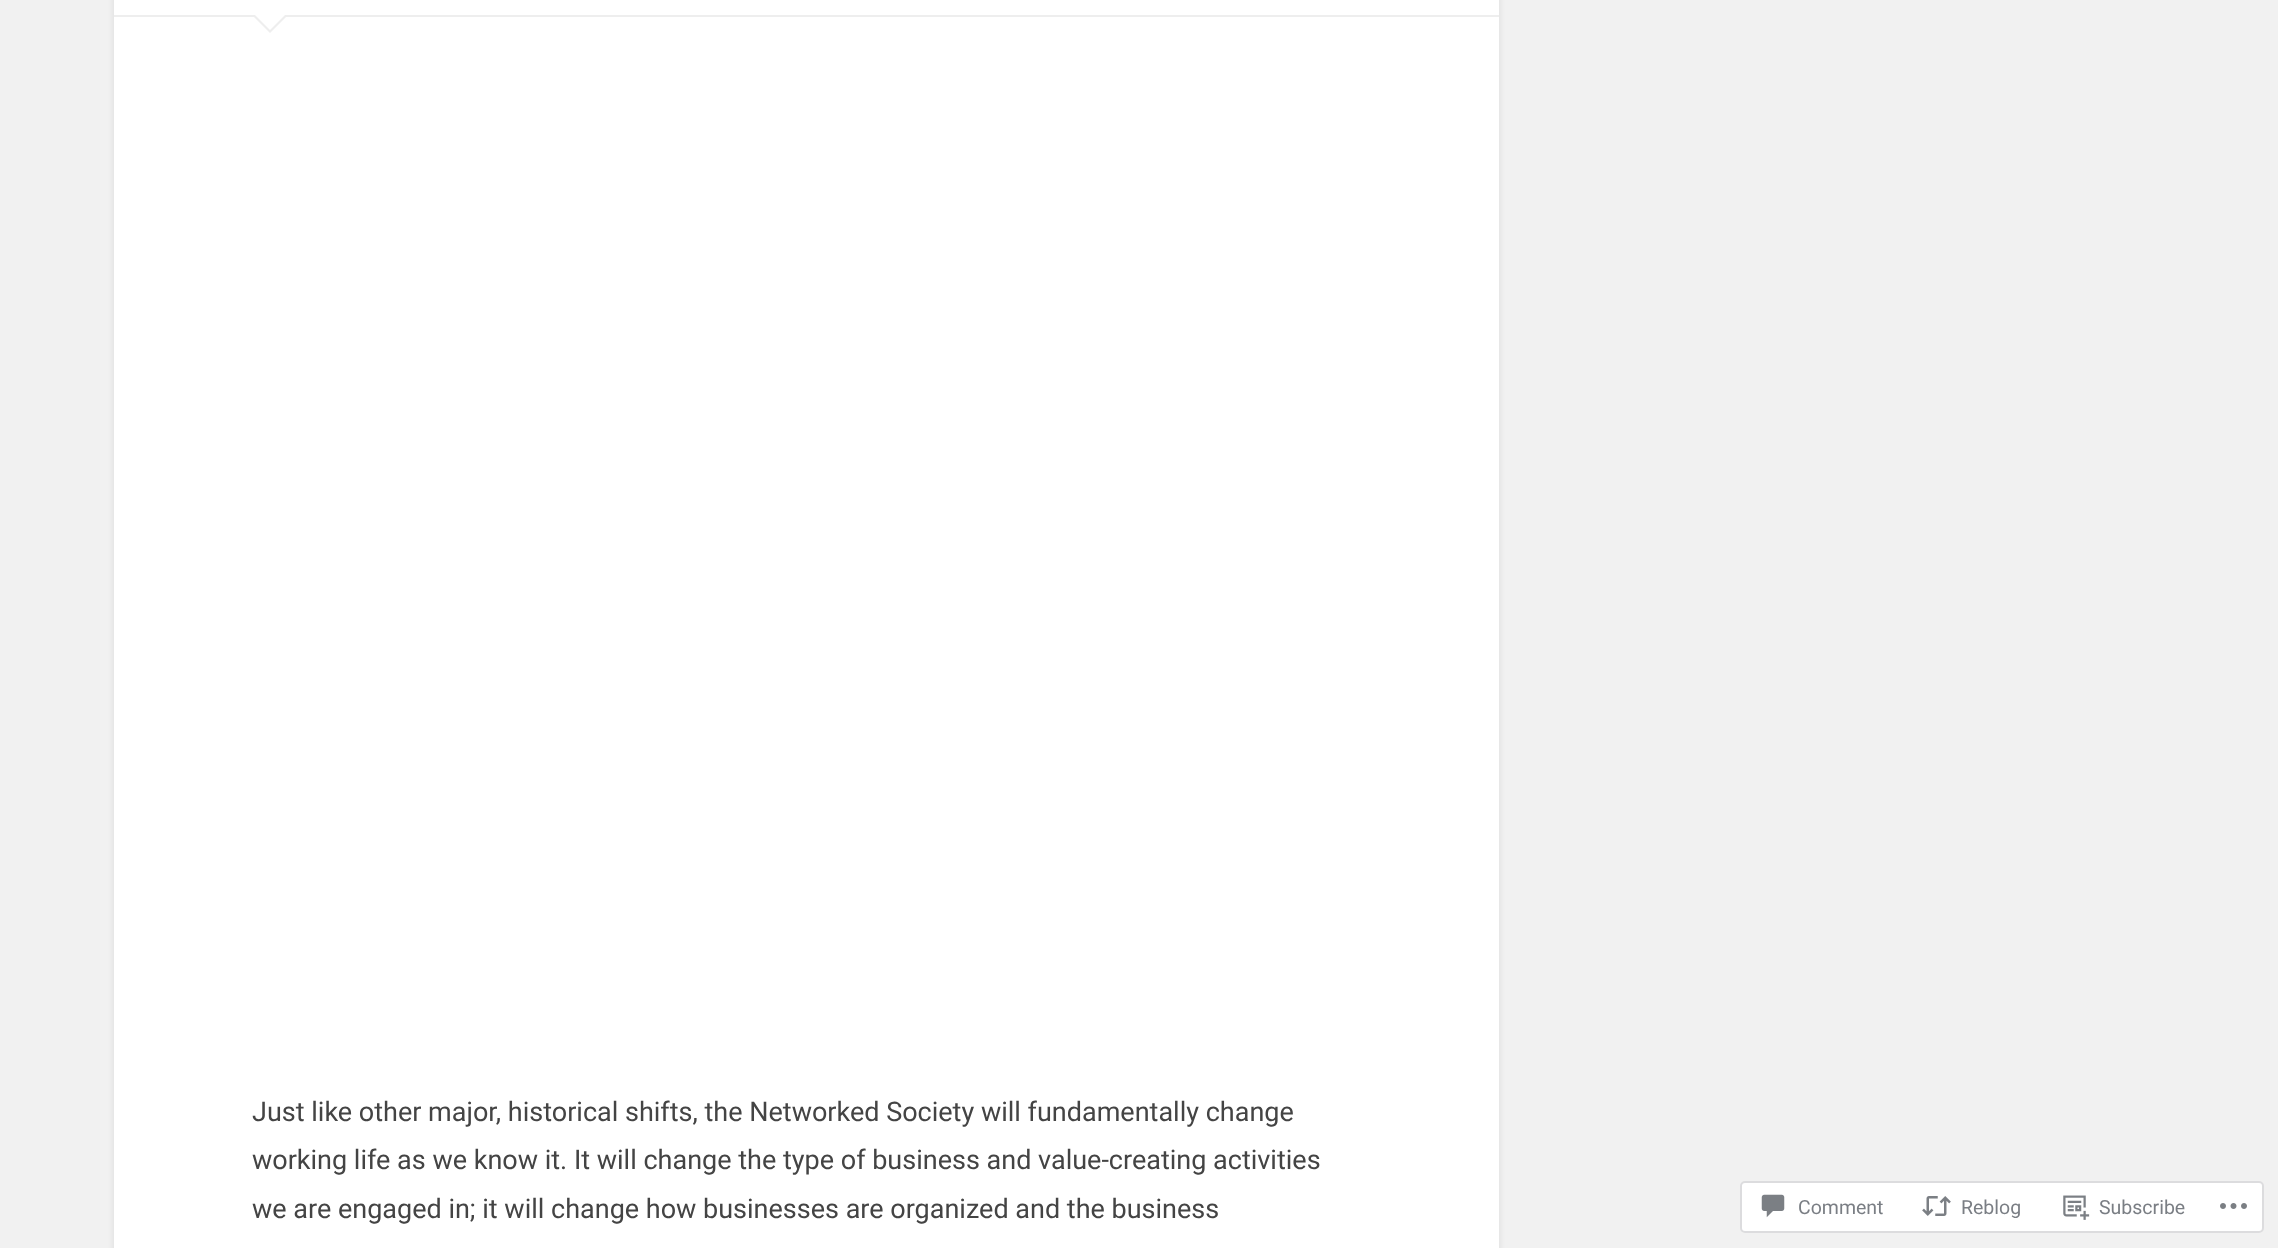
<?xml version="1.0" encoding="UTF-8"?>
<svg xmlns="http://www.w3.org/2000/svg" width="2278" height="1248">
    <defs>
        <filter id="blur1" x="-50%" y="-200%" width="200%" height="500%"><feGaussianBlur stdDeviation="3"/></filter>
    </defs>
    <rect width="100%" height="100%" fill="#F1F1F1"/>
    <rect x="114" y="-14" width="1385" height="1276" rx="5" fill="#000000" fill-opacity="0.1" filter="url(#blur1)"/>
    <rect x="114" y="0" width="1385" height="1248" fill="#FFFFFF"/>
    <rect x="114" y="15" width="1385" height="2" fill="#EEEEEE"/>
    <path d="M 252 15 H 288 L 270 33 Z" fill="#EEEEEE"/>
    <path d="M 253.5 13.5 H 286.5 L 270 30 Z" fill="#FFFFFF"/>
    <text font-family="Roboto" font-size="27" fill="#444444">
        <tspan x="252" y="1121">Just like other major, historical shifts, the Networked Society will fundamentally change</tspan>
        <tspan x="252" y="1169">working life as we know it. It will change the type of business and value-creating activities</tspan>
        <tspan x="252" y="1218">we are engaged in; it will change how businesses are organized and the business</tspan>
    </text>
    <rect x="1741" y="1182" width="522" height="50" rx="4" fill="#FFFFFF" stroke="#DCDCDE" stroke-width="2"/>
    <image x="1761" y="1194" width="24" height="24" href="img_01.png"/>
    <text x="1798" y="1214" font-family="Roboto" font-size="19.5" fill="#7A7E84">Comment</text>
    <image x="1922" y="1196" width="29" height="20" href="img_02.png"/>
    <text x="1961" y="1214" font-family="Roboto" font-size="19.5" fill="#7A7E84">Reblog</text>
    <image x="2063" y="1195" width="27" height="25" href="img_03.png"/>
    <text x="2099" y="1214" font-family="Roboto" font-size="19.5" fill="#7A7E84">Subscribe</text>
    <image x="2220" y="1203" width="27" height="6" href="img_04.png"/>
</svg>
